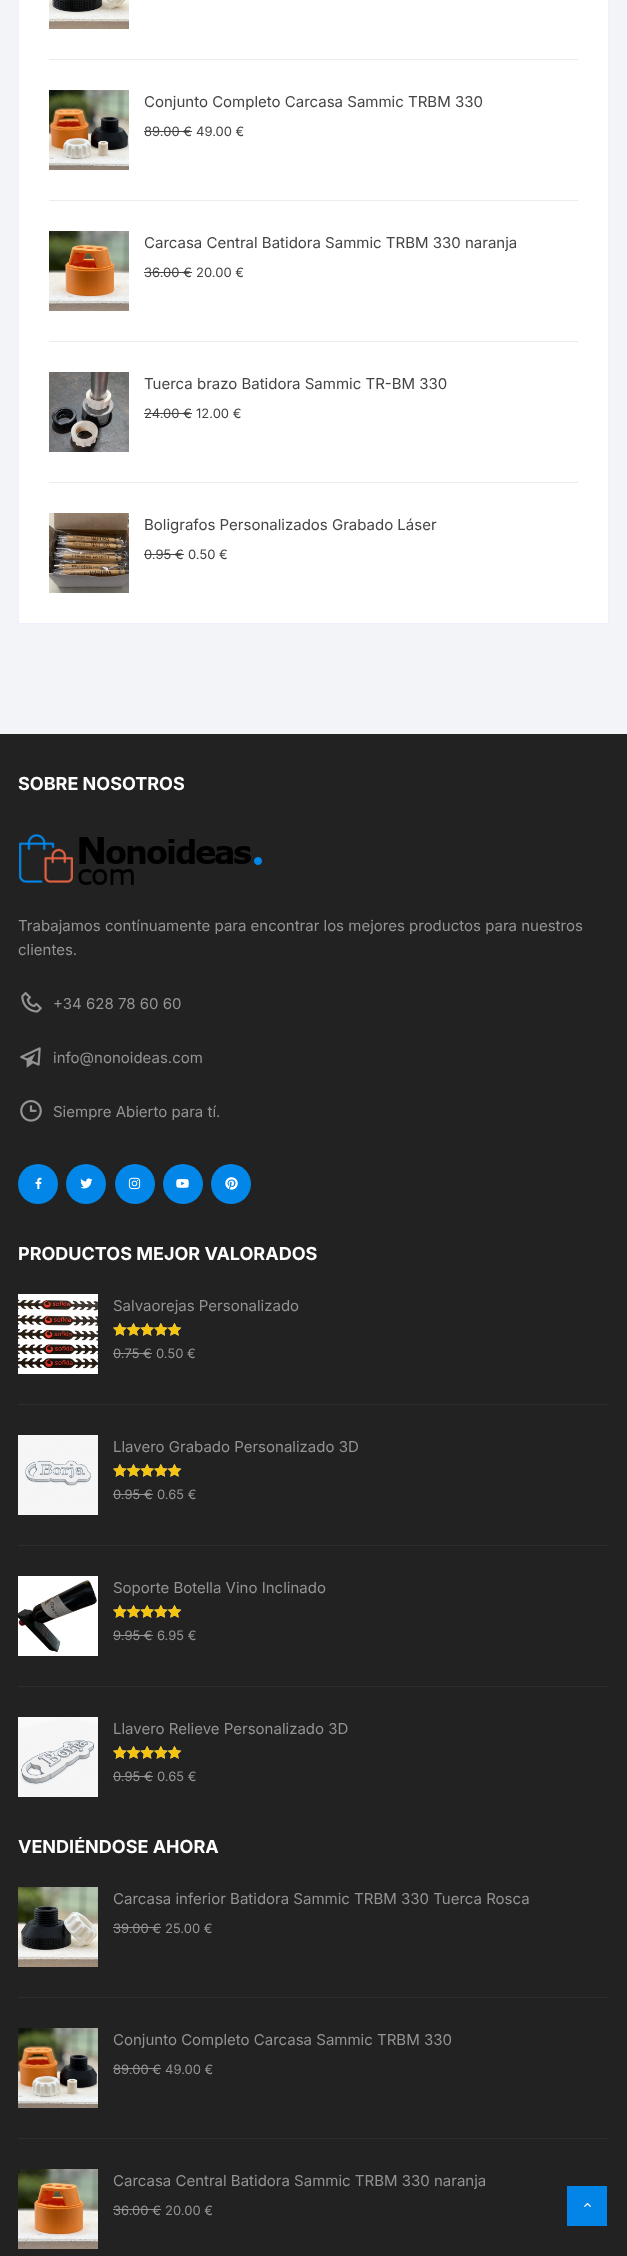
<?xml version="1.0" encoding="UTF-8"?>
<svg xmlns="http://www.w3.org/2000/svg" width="627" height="2256">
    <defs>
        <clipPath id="clip1"><rect x="18" y="1837" width="591" height="20"/></clipPath>
    </defs>
    <rect width="100%" height="100%" fill="#F3F4F8"/>
    <rect x="18.5" y="-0.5" width="590" height="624" fill="#FFFFFF" stroke="#EEF1FD"/>
    <rect x="49" y="59" width="529" height="1" fill="#ECECEC"/>
    <image x="49" y="0" width="80" height="29" href="img_01.png"/>
    <rect x="49" y="200" width="529" height="1" fill="#ECECEC"/>
    <image x="49" y="90" width="80" height="80" href="img_02.png"/>
    <text x="144" y="107" font-family="Inter" font-size="15" fill="#444444">Conjunto Completo Carcasa Sammic TRBM 330</text>
    <text x="144" y="136" font-family="Inter" font-size="13" fill="#444444">89.00 €</text>
    <rect x="144" y="131" width="48" height="1" fill="#444444"/>
    <text x="196" y="136" font-family="Inter" font-size="13" fill="#444444">49.00 €</text>
    <rect x="49" y="341" width="529" height="1" fill="#ECECEC"/>
    <image x="49" y="231" width="80" height="80" href="img_03.png"/>
    <text x="144" y="248" font-family="Inter" font-size="15" fill="#444444">Carcasa Central Batidora Sammic TRBM 330 naranja</text>
    <text x="144" y="277" font-family="Inter" font-size="13" fill="#444444">36.00 €</text>
    <rect x="144" y="272" width="48" height="1" fill="#444444"/>
    <text x="196" y="277" font-family="Inter" font-size="13" fill="#444444">20.00 €</text>
    <rect x="49" y="482" width="529" height="1" fill="#ECECEC"/>
    <image x="49" y="372" width="80" height="80" href="img_04.png"/>
    <text x="144" y="389" font-family="Inter" font-size="15" fill="#444444">Tuerca brazo Batidora Sammic TR-BM 330</text>
    <text x="144" y="418" font-family="Inter" font-size="13" fill="#444444">24.00 €</text>
    <rect x="144" y="413" width="48" height="1" fill="#444444"/>
    <text x="196" y="418" font-family="Inter" font-size="13" fill="#444444">12.00 €</text>
    <image x="49" y="513" width="80" height="80" href="img_05.png"/>
    <text x="144" y="530" font-family="Inter" font-size="15" fill="#444444">Boligrafos Personalizados Grabado Láser</text>
    <text x="144" y="559" font-family="Inter" font-size="13" fill="#444444">0.95 €</text>
    <rect x="144" y="554" width="40" height="1" fill="#444444"/>
    <text x="188" y="559" font-family="Inter" font-size="13" fill="#444444">0.50 €</text>
    <rect x="0" y="734" width="627" height="1522" fill="#222222"/>
    <text x="18" y="790" font-family="Inter" font-size="18" font-weight="700" fill="#FFFFFF">SOBRE NOSOTROS</text>
    <image x="19" y="834" width="243" height="51" href="img_06.png"/>
    <text font-family="Inter" font-size="15" fill="#949494">
        <tspan x="18" y="931">Trabajamos contínuamente para encontrar los mejores productos para nuestros</tspan>
        <tspan x="18" y="955">clientes.</tspan>
    </text>
    <image x="21" y="992" width="21" height="21" href="img_07.png"/>
    <text x="53" y="1009" font-family="Inter" font-size="15" fill="#949494">+34 628 78 60 60</text>
    <image x="20" y="1047" width="21" height="21" href="img_08.png"/>
    <text x="53" y="1063" font-family="Inter" font-size="15" fill="#949494">info@nonoideas.com</text>
    <image x="20" y="1100" width="22" height="22" href="img_09.png"/>
    <text x="53" y="1117" font-family="Inter" font-size="15" fill="#949494">Siempre Abierto para tí.</text>
    <circle cx="38" cy="1184" r="20" fill="#0286E7"/>
    <image x="35" y="1177" width="7" height="13" href="img_10.png"/>
    <circle cx="86" cy="1184" r="20" fill="#0286E7"/>
    <image x="80" y="1178" width="13" height="11" href="img_11.png"/>
    <circle cx="135" cy="1184" r="20" fill="#0286E7"/>
    <image x="128" y="1177" width="13" height="13" href="img_12.png"/>
    <circle cx="183" cy="1184" r="20" fill="#0286E7"/>
    <image x="176" y="1179" width="13" height="9" href="img_13.png"/>
    <circle cx="231" cy="1184" r="20" fill="#0286E7"/>
    <image x="225" y="1177" width="13" height="13" href="img_14.png"/>
    <text x="18" y="1260" font-family="Inter" font-size="18" font-weight="700" fill="#FFFFFF">PRODUCTOS MEJOR VALORADOS</text>
    <rect x="18" y="1404" width="591" height="1" fill="#2D2D2D"/>
    <rect x="18" y="1294" width="80" height="80" fill="#FFFFFF"/>
    <image x="18" y="1299" width="80" height="70" href="img_15.png"/>
    <text x="113" y="1311" font-family="Inter" font-size="15" fill="#949494">Salvaorejas Personalizado</text>
    <image x="113" y="1323" width="69" height="13" href="img_16.png"/>
    <image x="113" y="1323" width="69" height="13" href="img_17.png"/>
    <text x="113" y="1358" font-family="Inter" font-size="13" fill="#949494">0.75 €</text>
    <rect x="113" y="1353" width="39" height="1" fill="#949494"/>
    <text x="156" y="1358" font-family="Inter" font-size="13" fill="#949494">0.50 €</text>
    <rect x="18" y="1545" width="591" height="1" fill="#2D2D2D"/>
    <image x="18" y="1435" width="80" height="80" href="img_18.png"/>
    <text x="113" y="1452" font-family="Inter" font-size="15" fill="#949494">Llavero Grabado Personalizado 3D</text>
    <image x="113" y="1464" width="69" height="13" href="img_16.png"/>
    <image x="113" y="1464" width="69" height="13" href="img_17.png"/>
    <text x="113" y="1499" font-family="Inter" font-size="13" fill="#949494">0.95 €</text>
    <rect x="113" y="1494" width="40" height="1" fill="#949494"/>
    <text x="157" y="1499" font-family="Inter" font-size="13" fill="#949494">0.65 €</text>
    <rect x="18" y="1686" width="591" height="1" fill="#2D2D2D"/>
    <rect x="18" y="1576" width="80" height="80" fill="#FFFFFF"/>
    <image x="18" y="1580" width="79" height="72" href="img_19.png"/>
    <text x="113" y="1593" font-family="Inter" font-size="15" fill="#949494">Soporte Botella Vino Inclinado</text>
    <image x="113" y="1605" width="69" height="13" href="img_16.png"/>
    <image x="113" y="1605" width="69" height="13" href="img_17.png"/>
    <text x="113" y="1640" font-family="Inter" font-size="13" fill="#949494">9.95 €</text>
    <rect x="113" y="1635" width="40" height="1" fill="#949494"/>
    <text x="157" y="1640" font-family="Inter" font-size="13" fill="#949494">6.95 €</text>
    <image x="18" y="1717" width="80" height="80" href="img_20.png"/>
    <text x="113" y="1734" font-family="Inter" font-size="15" fill="#949494">Llavero Relieve Personalizado 3D</text>
    <image x="113" y="1746" width="69" height="13" href="img_16.png"/>
    <image x="113" y="1746" width="69" height="13" href="img_17.png"/>
    <text x="113" y="1781" font-family="Inter" font-size="13" fill="#949494">0.95 €</text>
    <rect x="113" y="1776" width="40" height="1" fill="#949494"/>
    <text x="157" y="1781" font-family="Inter" font-size="13" fill="#949494">0.65 €</text>
    <g clip-path="url(#clip1)">
        <text x="18" y="1853" font-family="Inter" font-size="18" font-weight="700" fill="#FFFFFF">VENDIÉNDOSE AHORA</text>
    </g>
    <rect x="18" y="1997" width="591" height="1" fill="#2D2D2D"/>
    <image x="18" y="1887" width="80" height="80" href="img_21.png"/>
    <text x="113" y="1904" font-family="Inter" font-size="15" fill="#949494">Carcasa inferior Batidora Sammic TRBM 330 Tuerca Rosca</text>
    <text x="113" y="1933" font-family="Inter" font-size="13" fill="#949494">39.00 €</text>
    <rect x="113" y="1927" width="48" height="1" fill="#949494"/>
    <text x="165" y="1933" font-family="Inter" font-size="13" fill="#949494">25.00 €</text>
    <rect x="18" y="2138" width="591" height="1" fill="#2D2D2D"/>
    <image x="18" y="2028" width="80" height="80" href="img_22.png"/>
    <text x="113" y="2045" font-family="Inter" font-size="15" fill="#949494">Conjunto Completo Carcasa Sammic TRBM 330</text>
    <text x="113" y="2074" font-family="Inter" font-size="13" fill="#949494">89.00 €</text>
    <rect x="113" y="2068" width="48" height="1" fill="#949494"/>
    <text x="165" y="2074" font-family="Inter" font-size="13" fill="#949494">49.00 €</text>
    <image x="18" y="2169" width="80" height="80" href="img_23.png"/>
    <text x="113" y="2186" font-family="Inter" font-size="15" fill="#949494">Carcasa Central Batidora Sammic TRBM 330 naranja</text>
    <text x="113" y="2215" font-family="Inter" font-size="13" fill="#949494">36.00 €</text>
    <rect x="113" y="2209" width="48" height="1" fill="#949494"/>
    <text x="165" y="2215" font-family="Inter" font-size="13" fill="#949494">20.00 €</text>
    <rect x="567" y="2186" width="40" height="40" fill="#0285E6"/>
    <image x="584" y="2202" width="7" height="5" href="img_24.png"/>
</svg>
